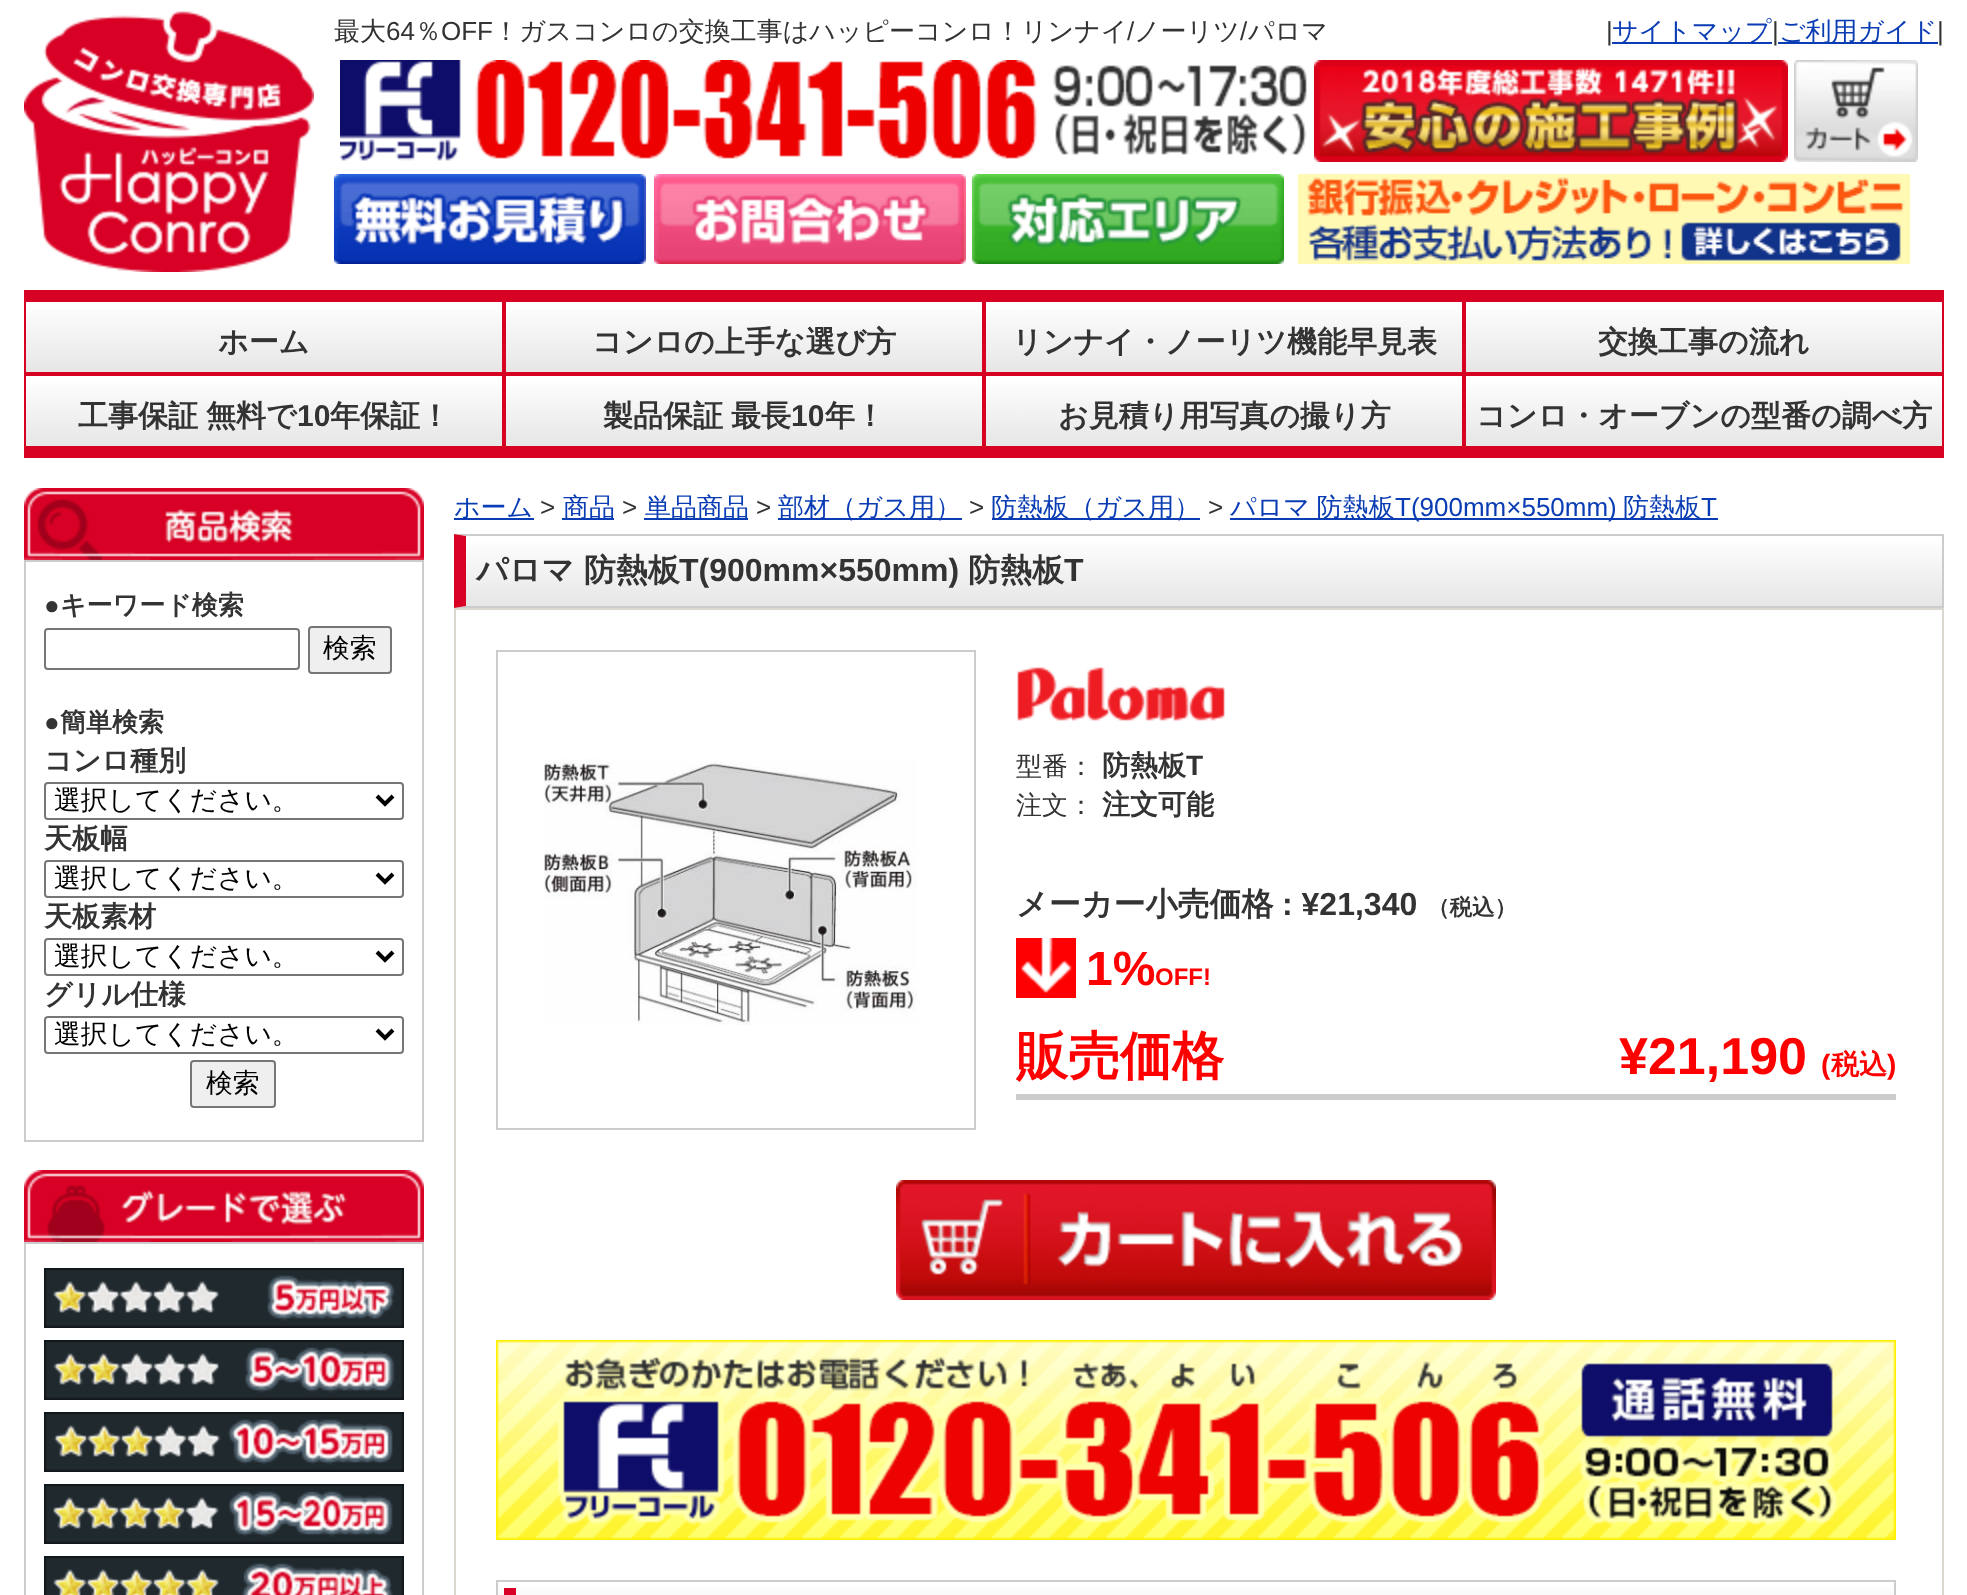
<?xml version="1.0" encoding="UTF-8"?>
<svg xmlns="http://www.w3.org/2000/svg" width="1967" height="1595">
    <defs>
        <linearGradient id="g1" gradientUnits="userSpaceOnUse" x1="264" y1="302" x2="264" y2="372"><stop offset="0" stop-color="#FFFFFF"/><stop offset="1" stop-color="#E6E6E6"/></linearGradient>
        <linearGradient id="g2" gradientUnits="userSpaceOnUse" x1="744" y1="302" x2="744" y2="372"><stop offset="0" stop-color="#FFFFFF"/><stop offset="1" stop-color="#E6E6E6"/></linearGradient>
        <linearGradient id="g3" gradientUnits="userSpaceOnUse" x1="1224" y1="302" x2="1224" y2="372"><stop offset="0" stop-color="#FFFFFF"/><stop offset="1" stop-color="#E6E6E6"/></linearGradient>
        <linearGradient id="g4" gradientUnits="userSpaceOnUse" x1="1704" y1="302" x2="1704" y2="372"><stop offset="0" stop-color="#FFFFFF"/><stop offset="1" stop-color="#E6E6E6"/></linearGradient>
        <linearGradient id="g5" gradientUnits="userSpaceOnUse" x1="264" y1="376" x2="264" y2="446"><stop offset="0" stop-color="#FFFFFF"/><stop offset="1" stop-color="#E6E6E6"/></linearGradient>
        <linearGradient id="g6" gradientUnits="userSpaceOnUse" x1="744" y1="376" x2="744" y2="446"><stop offset="0" stop-color="#FFFFFF"/><stop offset="1" stop-color="#E6E6E6"/></linearGradient>
        <linearGradient id="g7" gradientUnits="userSpaceOnUse" x1="1224" y1="376" x2="1224" y2="446"><stop offset="0" stop-color="#FFFFFF"/><stop offset="1" stop-color="#E6E6E6"/></linearGradient>
        <linearGradient id="g8" gradientUnits="userSpaceOnUse" x1="1704" y1="376" x2="1704" y2="446"><stop offset="0" stop-color="#FFFFFF"/><stop offset="1" stop-color="#E6E6E6"/></linearGradient>
        <linearGradient id="g9" gradientUnits="userSpaceOnUse" x1="1204" y1="536" x2="1204" y2="606"><stop offset="0" stop-color="#FFFFFF"/><stop offset="1" stop-color="#E6E6E6"/></linearGradient>
        <linearGradient id="g10" gradientUnits="userSpaceOnUse" x1="1196" y1="1582" x2="1196" y2="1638"><stop offset="0" stop-color="#FFFFFF"/><stop offset="1" stop-color="#E6E6E6"/></linearGradient>
    </defs>
    <rect width="100%" height="100%" fill="#FFFFFF"/>
    <image x="24" y="11" width="290" height="261" href="img_01.png"/>
    <text x="334" y="40" font-family="WenQuanYi Zen Hei" font-size="26" font-weight="500" fill="#333333">最大</text>
    <text x="386" y="40" font-family="Liberation Sans" font-size="26" fill="#333333">64</text>
    <text x="415" y="40" font-family="WenQuanYi Zen Hei" font-size="26" font-weight="500" fill="#333333">％</text>
    <text x="441" y="40" font-family="Liberation Sans" font-size="26" fill="#333333">OFF</text>
    <text x="493" y="40" font-family="WenQuanYi Zen Hei" font-size="26" font-weight="500" fill="#333333">！ガスコンロの交換工事はハッピーコンロ！リンナイ</text>
    <text x="1127" y="40" font-family="Liberation Sans" font-size="26" fill="#333333">/</text>
    <text x="1134" y="40" font-family="WenQuanYi Zen Hei" font-size="26" font-weight="500" fill="#333333">ノーリツ</text>
    <text x="1240" y="40" font-family="Liberation Sans" font-size="26" fill="#333333">/</text>
    <text x="1248" y="40" font-family="WenQuanYi Zen Hei" font-size="26" font-weight="500" fill="#333333">パロマ</text>
    <text x="1606" y="40" font-family="Liberation Sans" font-size="26" fill="#333333">|</text>
    <rect x="1612" y="42" width="160" height="2" fill="#0A3CB4"/>
    <text x="1612" y="40" font-family="WenQuanYi Zen Hei" font-size="26" font-weight="500" fill="#0A3CB4">サイトマップ</text>
    <text x="1772" y="40" font-family="Liberation Sans" font-size="26" fill="#333333">|</text>
    <rect x="1778" y="42" width="160" height="2" fill="#0A3CB4"/>
    <text x="1779" y="40" font-family="WenQuanYi Zen Hei" font-size="26" font-weight="500" fill="#0A3CB4">ご利用ガイド</text>
    <text x="1937" y="40" font-family="Liberation Sans" font-size="26" fill="#333333">|</text>
    <image x="340" y="60" width="967" height="101" href="img_02.png"/>
    <image x="1314" y="60" width="474" height="102" href="img_03.png"/>
    <image x="1794" y="60" width="124" height="102" href="img_04.png"/>
    <image x="334" y="174" width="312" height="90" href="img_05.png"/>
    <image x="654" y="174" width="312" height="90" href="img_06.png"/>
    <image x="972" y="174" width="312" height="90" href="img_07.png"/>
    <image x="1298" y="174" width="612" height="90" href="img_08.png"/>
    <rect x="24" y="290" width="1920" height="10" fill="#D70223"/>
    <rect x="24" y="448" width="1920" height="10" fill="#D70223"/>
    <rect x="26" y="309" width="476" height="63" fill="url(#g1)"/>
    <rect x="25" y="301" width="478" height="72" fill="none" stroke="#D70223" stroke-width="2"/>
    <text x="218" y="352" font-family="WenQuanYi Zen Hei" font-size="30" font-weight="700" fill="#333333">ホーム</text>
    <rect x="506" y="309" width="476" height="63" fill="url(#g2)"/>
    <rect x="505" y="301" width="478" height="72" fill="none" stroke="#D70223" stroke-width="2"/>
    <text x="592" y="352" font-family="WenQuanYi Zen Hei" font-size="30" font-weight="700" fill="#333333">コンロの上手な選び方</text>
    <rect x="986" y="309" width="476" height="63" fill="url(#g3)"/>
    <rect x="985" y="301" width="478" height="72" fill="none" stroke="#D70223" stroke-width="2"/>
    <text x="1012" y="352" font-family="WenQuanYi Zen Hei" font-size="30" font-weight="700" fill="#333333">リンナイ・ノーリツ機能早見表</text>
    <rect x="1466" y="309" width="476" height="63" fill="url(#g4)"/>
    <rect x="1465" y="301" width="478" height="72" fill="none" stroke="#D70223" stroke-width="2"/>
    <text x="1598" y="352" font-family="WenQuanYi Zen Hei" font-size="30" font-weight="700" fill="#333333">交換工事の流れ</text>
    <rect x="26" y="383" width="476" height="63" fill="url(#g5)"/>
    <rect x="25" y="375" width="478" height="72" fill="none" stroke="#D70223" stroke-width="2"/>
    <text x="78" y="426" word-spacing="-1" font-family="WenQuanYi Zen Hei" font-size="30" font-weight="700" fill="#333333">工事保証 無料で</text>
    <text x="297" y="426" font-family="Liberation Sans" font-size="30" font-weight="700" fill="#333333">10</text>
    <text x="330" y="426" font-family="WenQuanYi Zen Hei" font-size="30" font-weight="700" fill="#333333">年保証！</text>
    <rect x="506" y="383" width="476" height="63" fill="url(#g6)"/>
    <rect x="505" y="375" width="478" height="72" fill="none" stroke="#D70223" stroke-width="2"/>
    <text x="603" y="426" word-spacing="-1" font-family="WenQuanYi Zen Hei" font-size="30" font-weight="700" fill="#333333">製品保証 最長</text>
    <text x="791" y="426" font-family="Liberation Sans" font-size="30" font-weight="700" fill="#333333">10</text>
    <text x="825" y="426" font-family="WenQuanYi Zen Hei" font-size="30" font-weight="700" fill="#333333">年！</text>
    <rect x="986" y="383" width="476" height="63" fill="url(#g7)"/>
    <rect x="985" y="375" width="478" height="72" fill="none" stroke="#D70223" stroke-width="2"/>
    <text x="1058" y="426" font-family="WenQuanYi Zen Hei" font-size="30" font-weight="700" fill="#333333">お見積り用写真の撮り方</text>
    <rect x="1466" y="383" width="476" height="63" fill="url(#g8)"/>
    <rect x="1465" y="375" width="478" height="72" fill="none" stroke="#D70223" stroke-width="2"/>
    <text x="1476" y="426" font-family="WenQuanYi Zen Hei" font-size="30" font-weight="700" fill="#333333">コンロ・オーブンの型番の調べ方</text>
    <image x="24" y="488" width="400" height="72" href="img_09.png"/>
    <rect x="25" y="561" width="398" height="580" fill="none" stroke="#CCCCCC" stroke-width="2"/>
    <text x="44" y="614" font-family="Liberation Sans" font-size="26" font-weight="700" fill="#333333">●</text>
    <text x="60" y="614" font-family="WenQuanYi Zen Hei" font-size="26" font-weight="700" fill="#333333">キーワード検索</text>
    <rect x="45" y="629" width="254" height="40" rx="3" fill="none" stroke="#767676" stroke-width="2"/>
    <rect x="309" y="627" width="82" height="46" rx="3" fill="#EFEFEF" stroke="#767676" stroke-width="2"/>
    <text x="323" y="657" font-family="WenQuanYi Zen Hei" font-size="26.75" font-weight="500" fill="#000000">検索</text>
    <text x="44" y="731" font-family="Liberation Sans" font-size="26" font-weight="700" fill="#333333">●</text>
    <text x="60" y="731" font-family="WenQuanYi Zen Hei" font-size="26" font-weight="700" fill="#333333">簡単検索</text>
    <text x="44" y="770" font-family="WenQuanYi Zen Hei" font-size="28" font-weight="700" fill="#333333">コンロ種別</text>
    <rect x="45" y="783" width="358" height="36" rx="3" fill="none" stroke="#767676" stroke-width="2"/>
    <path d="M 377 796 L 385 804 L 393 796" fill="none" stroke="#000000" stroke-width="4"/>
    <text x="54" y="809" font-family="WenQuanYi Zen Hei" font-size="26.75" font-weight="500" fill="#000000">選択してください。</text>
    <text x="44" y="848" font-family="WenQuanYi Zen Hei" font-size="28" font-weight="700" fill="#333333">天板幅</text>
    <rect x="45" y="861" width="358" height="36" rx="3" fill="none" stroke="#767676" stroke-width="2"/>
    <path d="M 377 874 L 385 882 L 393 874" fill="none" stroke="#000000" stroke-width="4"/>
    <text x="54" y="887" font-family="WenQuanYi Zen Hei" font-size="26.75" font-weight="500" fill="#000000">選択してください。</text>
    <text x="44" y="926" font-family="WenQuanYi Zen Hei" font-size="28" font-weight="700" fill="#333333">天板素材</text>
    <rect x="45" y="939" width="358" height="36" rx="3" fill="none" stroke="#767676" stroke-width="2"/>
    <path d="M 377 952 L 385 960 L 393 952" fill="none" stroke="#000000" stroke-width="4"/>
    <text x="54" y="965" font-family="WenQuanYi Zen Hei" font-size="26.75" font-weight="500" fill="#000000">選択してください。</text>
    <text x="44" y="1004" font-family="WenQuanYi Zen Hei" font-size="28" font-weight="700" fill="#333333">グリル仕様</text>
    <rect x="45" y="1017" width="358" height="36" rx="3" fill="none" stroke="#767676" stroke-width="2"/>
    <path d="M 377 1030 L 385 1038 L 393 1030" fill="none" stroke="#000000" stroke-width="4"/>
    <text x="54" y="1043" font-family="WenQuanYi Zen Hei" font-size="26.75" font-weight="500" fill="#000000">選択してください。</text>
    <rect x="191" y="1061" width="84" height="46" rx="3" fill="#EFEFEF" stroke="#767676" stroke-width="2"/>
    <text x="206" y="1092" font-family="WenQuanYi Zen Hei" font-size="26.75" font-weight="500" fill="#000000">検索</text>
    <image x="24" y="1170" width="400" height="72" href="img_10.png"/>
    <rect x="25" y="1243" width="398" height="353" fill="none" stroke="#CCCCCC" stroke-width="2"/>
    <image x="44" y="1268" width="360" height="60" href="img_11.png"/>
    <image x="44" y="1340" width="360" height="60" href="img_12.png"/>
    <image x="44" y="1412" width="360" height="60" href="img_13.png"/>
    <image x="44" y="1484" width="360" height="60" href="img_14.png"/>
    <image x="44" y="1556" width="360" height="39" href="img_15.png"/>
    <rect x="454" y="518" width="80" height="2" fill="#0A3CB4"/>
    <text x="454" y="516" font-family="WenQuanYi Zen Hei" font-size="26" font-weight="500" fill="#0A3CB4">ホーム</text>
    <text x="540" y="516" font-family="Liberation Sans" font-size="26" fill="#333333">&gt;</text>
    <rect x="562" y="518" width="52" height="2" fill="#0A3CB4"/>
    <text x="563" y="516" font-family="WenQuanYi Zen Hei" font-size="26" font-weight="500" fill="#0A3CB4">商品</text>
    <text x="622" y="516" font-family="Liberation Sans" font-size="26" fill="#333333">&gt;</text>
    <rect x="644" y="518" width="104" height="2" fill="#0A3CB4"/>
    <text x="645" y="516" font-family="WenQuanYi Zen Hei" font-size="26" font-weight="500" fill="#0A3CB4">単品商品</text>
    <text x="756" y="516" font-family="Liberation Sans" font-size="26" fill="#333333">&gt;</text>
    <rect x="778" y="518" width="184" height="2" fill="#0A3CB4"/>
    <text x="778" y="516" font-family="WenQuanYi Zen Hei" font-size="26" font-weight="500" fill="#0A3CB4">部材（ガス用）</text>
    <text x="969" y="516" font-family="Liberation Sans" font-size="26" fill="#333333">&gt;</text>
    <rect x="992" y="518" width="208" height="2" fill="#0A3CB4"/>
    <text x="991" y="516" font-family="WenQuanYi Zen Hei" font-size="26" font-weight="500" fill="#0A3CB4">防熱板（ガス用）</text>
    <text x="1208" y="516" font-family="Liberation Sans" font-size="26" fill="#333333">&gt;</text>
    <rect x="1230" y="518" width="488" height="2" fill="#0A3CB4"/>
    <text x="1230" y="516" word-spacing="-1" font-family="WenQuanYi Zen Hei" font-size="26" font-weight="500" fill="#0A3CB4">パロマ 防熱板</text>
    <text x="1395" y="516" font-family="Liberation Sans" font-size="26" fill="#0A3CB4">T(900mm×550mm)</text>
    <text x="1623" y="516" font-family="WenQuanYi Zen Hei" font-size="26" font-weight="500" fill="#0A3CB4">防熱板</text>
    <text x="1701" y="516" font-family="Liberation Sans" font-size="26" fill="#0A3CB4">T</text>
    <rect x="466" y="543" width="1476" height="63" fill="url(#g9)"/>
    <path d="M 454 534 H 1944 L 1942 536 H 466 Z" fill="#CCCCCC"/>
    <rect x="1942" y="534" width="2" height="74" fill="#CCCCCC"/>
    <path d="M 1944 608 H 454 L 466 606 H 1942 Z" fill="#CCCCCC"/>
    <path d="M 454 608 V 534 L 466 536 V 606 Z" fill="#D80024"/>
    <text x="476" y="581" font-family="WenQuanYi Zen Hei" font-size="32" font-weight="700" fill="#333333">パロマ 防熱板</text>
    <text x="679" y="581" font-family="Liberation Sans" font-size="32" font-weight="700" fill="#333333">T(900mm×550mm)</text>
    <text x="968" y="581" font-family="WenQuanYi Zen Hei" font-size="32" font-weight="700" fill="#333333">防熱板</text>
    <text x="1064" y="581" font-family="Liberation Sans" font-size="32" font-weight="700" fill="#333333">T</text>
    <rect x="455" y="609" width="1488" height="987" fill="none" stroke="#DAD8D1" stroke-width="2"/>
    <rect x="497" y="651" width="478" height="478" fill="none" stroke="#CCCCCC" stroke-width="2"/>
    <image x="544" y="759" width="373" height="266" href="img_16.png"/>
    <image x="1017" y="667" width="208" height="54" href="img_17.png"/>
    <text x="1016" y="775" font-family="WenQuanYi Zen Hei" font-size="26" font-weight="500" fill="#333333">型番：</text>
    <text x="1102" y="775" font-family="WenQuanYi Zen Hei" font-size="28" font-weight="700" fill="#333333">防熱板</text>
    <text x="1186" y="775" font-family="Liberation Sans" font-size="28" font-weight="700" fill="#333333">T</text>
    <text x="1016" y="814" font-family="WenQuanYi Zen Hei" font-size="26" font-weight="500" fill="#333333">注文：</text>
    <text x="1102" y="814" font-family="WenQuanYi Zen Hei" font-size="28" font-weight="700" fill="#333333">注文可能</text>
    <text x="1016" y="915" font-family="WenQuanYi Zen Hei" font-size="32" font-weight="700" fill="#333333">メーカー小売価格</text>
    <text x="1282" y="915" font-family="Liberation Sans" font-size="32" font-weight="700" fill="#333333">: ¥21,340</text>
    <text x="1427" y="915" font-family="WenQuanYi Zen Hei" font-size="22.5" font-weight="700" fill="#333333">（税込）</text>
    <image x="1016" y="938" width="60" height="60" href="img_18.png"/>
    <text x="1086" y="985" font-family="Liberation Sans" font-size="48" font-weight="700" fill="#FF0000">1%</text>
    <text x="1155" y="985" font-family="Liberation Sans" font-size="24" font-weight="700" fill="#FF0000">OFF!</text>
    <rect x="1016" y="1094" width="880" height="6" fill="#CCCCCC"/>
    <text x="1016" y="1074" font-family="WenQuanYi Zen Hei" font-size="52" font-weight="700" fill="#FF0000">販売価格</text>
    <text x="1619" y="1074" font-family="Liberation Sans" font-size="52" font-weight="700" fill="#FF0000">¥21,190</text>
    <text x="1821" y="1074" font-family="Liberation Sans" font-size="28" font-weight="700" fill="#FF0000">(</text>
    <text x="1831" y="1074" font-family="WenQuanYi Zen Hei" font-size="28" font-weight="700" fill="#FF0000">税込</text>
    <text x="1887" y="1074" font-family="Liberation Sans" font-size="28" font-weight="700" fill="#FF0000">)</text>
    <image x="896" y="1180" width="600" height="120" href="img_19.png"/>
    <image x="496" y="1340" width="1400" height="200" href="img_20.png"/>
    <rect x="498" y="1588" width="1396" height="7" fill="url(#g10)"/>
    <rect x="497" y="1581" width="1398" height="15" fill="none" stroke="#CCCCCC" stroke-width="2"/>
    <rect x="504" y="1588" width="12" height="7" fill="#D80024"/>
</svg>
